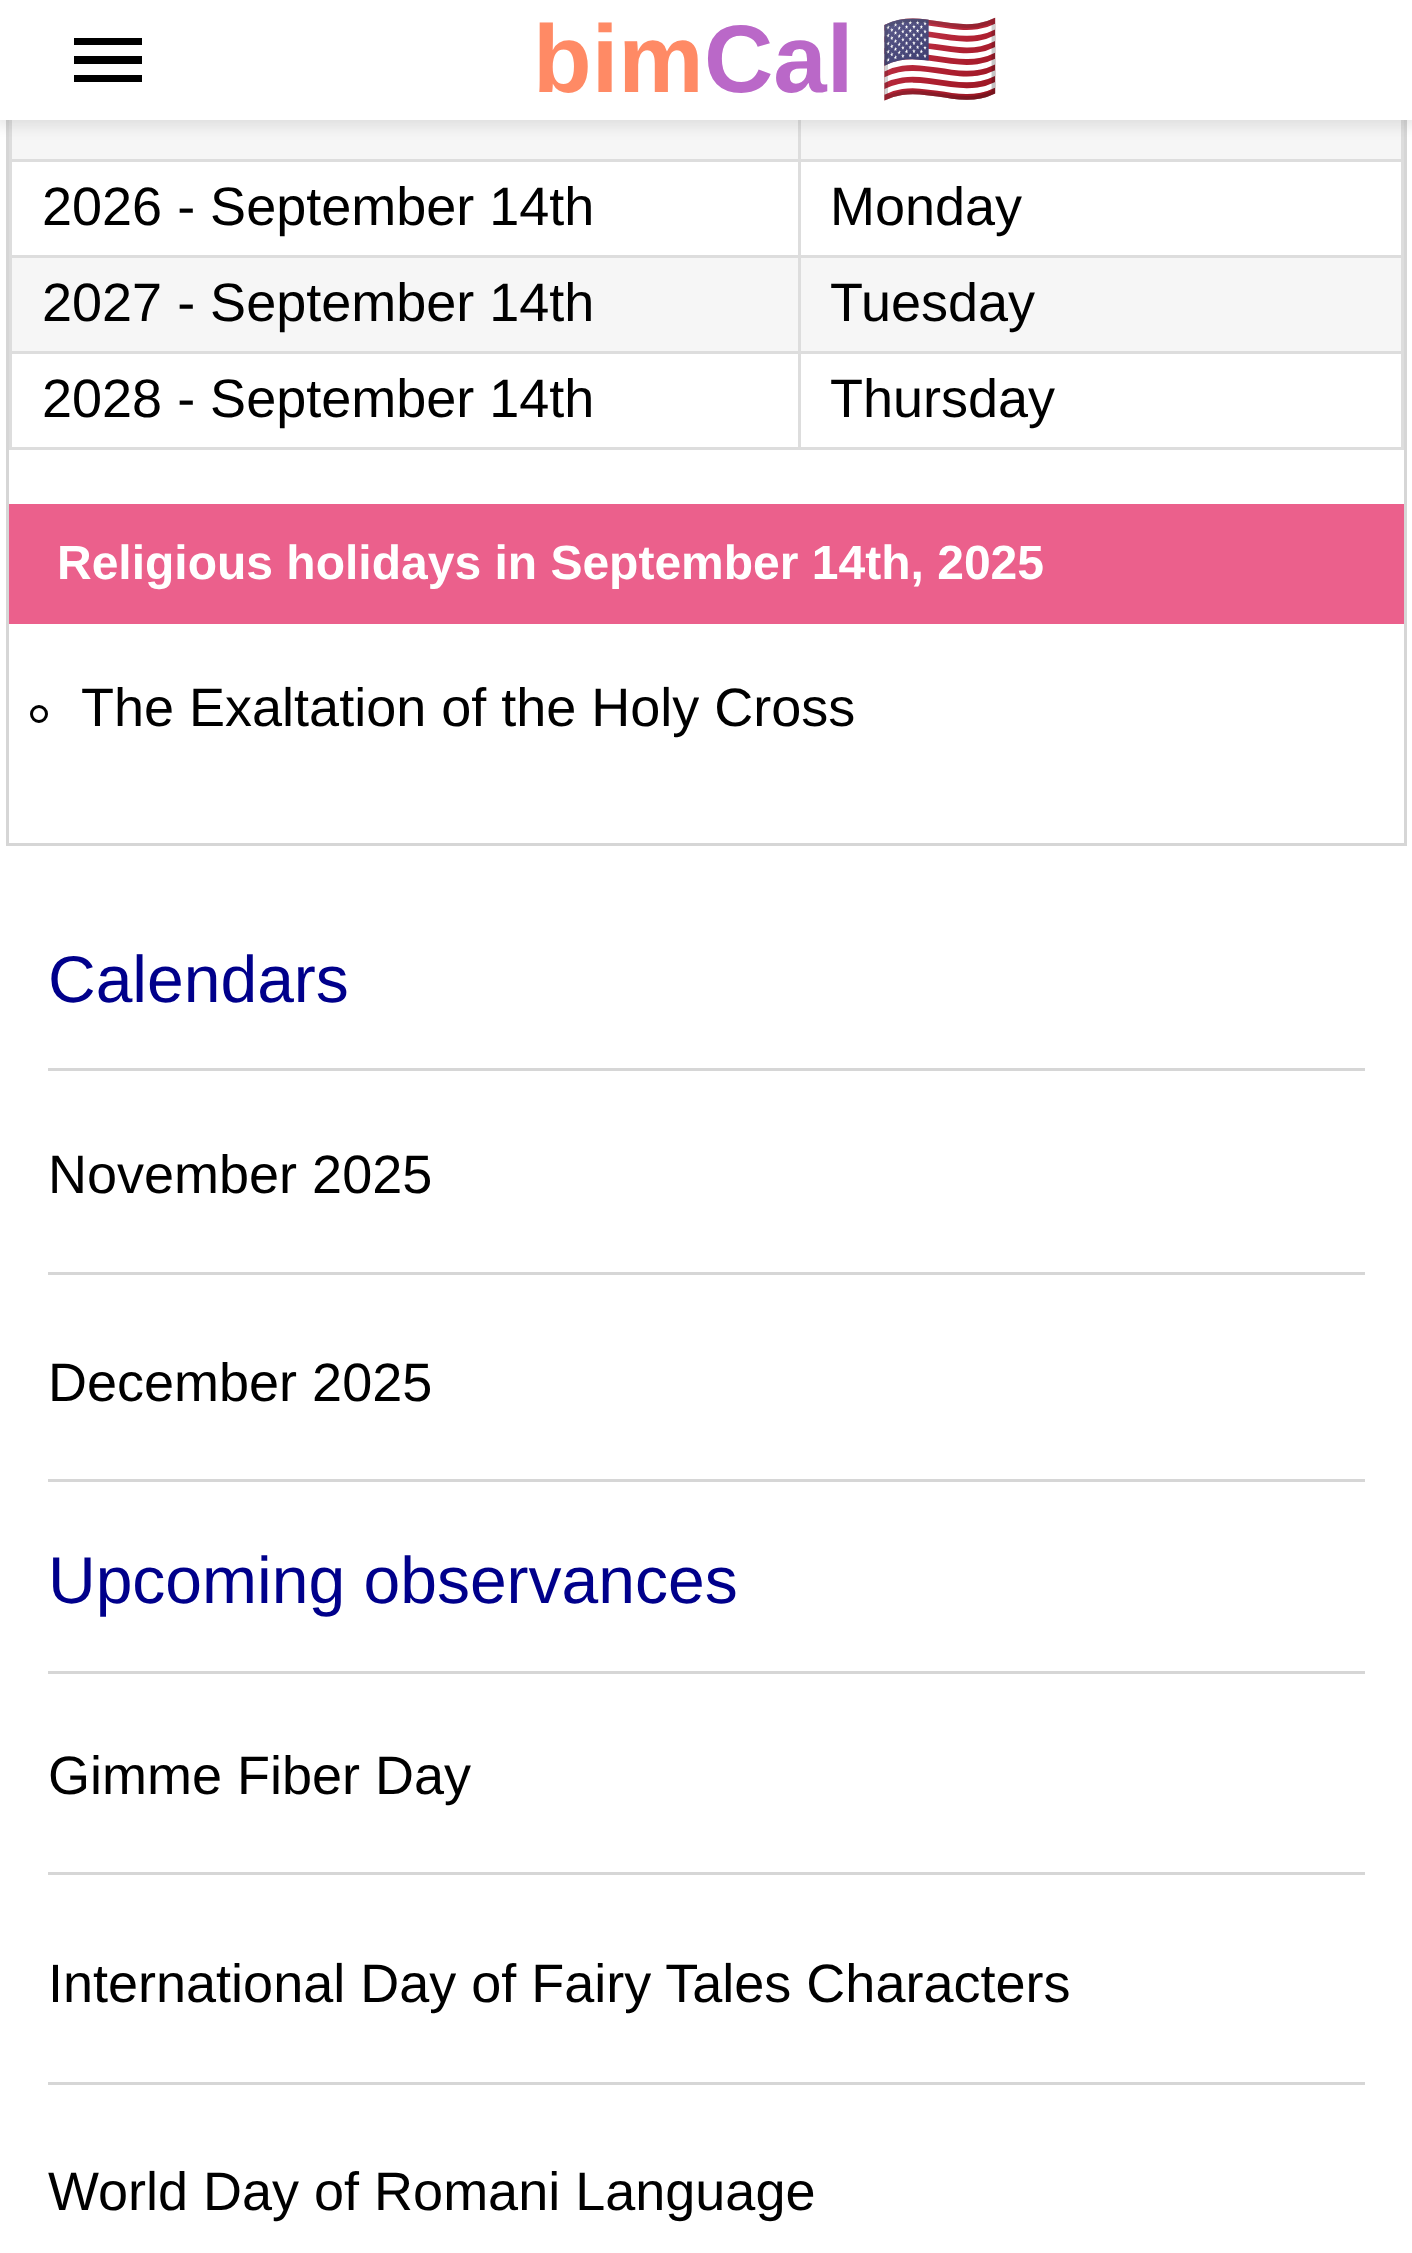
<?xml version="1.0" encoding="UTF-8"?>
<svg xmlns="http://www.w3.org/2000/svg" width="1412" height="2253">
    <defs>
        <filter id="blur1" x="-50%" y="-200%" width="200%" height="500%"><feGaussianBlur stdDeviation="7.5"/></filter>
    </defs>
    <rect width="100%" height="100%" fill="#FFFFFF"/>
    <rect x="7.5" y="-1.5" width="1398" height="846" fill="none" stroke="#D6D6D6" stroke-width="3"/>
    <rect x="12" y="120" width="1389" height="39" fill="#F6F6F6"/>
    <rect x="798" y="159" width="606" height="3" fill="#DDDDDD"/>
    <rect x="798" y="255" width="606" height="3" fill="#DDDDDD"/>
    <rect x="12" y="258" width="1389" height="93" fill="#F6F6F6"/>
    <rect x="798" y="351" width="606" height="3" fill="#DDDDDD"/>
    <rect x="1401" y="351" width="3" height="99" fill="#DDDDDD"/>
    <rect x="798" y="447" width="606" height="3" fill="#DDDDDD"/>
    <rect x="798" y="351" width="3" height="99" fill="#DDDDDD"/>
    <rect x="9" y="351" width="792" height="3" fill="#DDDDDD"/>
    <rect x="798" y="255" width="3" height="99" fill="#DDDDDD"/>
    <rect x="9" y="255" width="792" height="3" fill="#DDDDDD"/>
    <rect x="798" y="159" width="3" height="99" fill="#DDDDDD"/>
    <rect x="9" y="159" width="792" height="3" fill="#DDDDDD"/>
    <rect x="798" y="120" width="3" height="42" fill="#DDDDDD"/>
    <rect x="9" y="447" width="792" height="3" fill="#DDDDDD"/>
    <rect x="9" y="351" width="3" height="99" fill="#DDDDDD"/>
    <rect x="9" y="255" width="3" height="99" fill="#DDDDDD"/>
    <rect x="9" y="120" width="3" height="138" fill="#DDDDDD"/>
    <rect x="1401" y="255" width="3" height="99" fill="#DDDDDD"/>
    <rect x="1401" y="120" width="3" height="138" fill="#DDDDDD"/>
    <rect x="-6" y="-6" width="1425" height="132" fill="#000000" fill-opacity="0.1" filter="url(#blur1)"/>
    <rect x="0" y="0" width="1412" height="120" fill="#FFFFFF"/>
    <path d="M 74 82 H 142 V 75 H 74 V 82 M 74 64 H 142 V 56 H 74 V 64 M 74 38 V 45 H 142 V 38 H 74" fill="#000000"/>
    <text x="533" y="92" font-family="Liberation Sans" font-size="96" font-weight="700" fill="#FF8A65">bim</text>
    <text x="704" y="92" font-family="Liberation Sans" font-size="96" font-weight="700" fill="#BA68C8">Cal</text>
    <text x="880" y="92" font-family="Noto Color Emoji" font-size="96" font-weight="700" fill="#42A5F5">🇺🇸</text>
    <text x="42" y="225" font-family="Liberation Sans" font-size="54" fill="#000000">2026 - September 14th</text>
    <text x="830" y="225" font-family="Liberation Sans" font-size="54" fill="#000000">Monday</text>
    <text x="42" y="321" font-family="Liberation Sans" font-size="54" fill="#000000">2027 - September 14th</text>
    <text x="830" y="321" font-family="Liberation Sans" font-size="54" fill="#000000">Tuesday</text>
    <text x="42" y="417" font-family="Liberation Sans" font-size="54" fill="#000000">2028 - September 14th</text>
    <text x="830" y="417" font-family="Liberation Sans" font-size="54" fill="#000000">Thursday</text>
    <rect x="9" y="504" width="1395" height="120" fill="#EB608C"/>
    <text x="57" y="579" font-family="Liberation Sans" font-size="48" font-weight="700" fill="#FFFFFF">Religious holidays in September 14th, 2025</text>
    <circle cx="39" cy="714" r="7.5" fill="none" stroke="#000000" stroke-width="3"/>
    <text x="81" y="726" font-family="Liberation Sans" font-size="54" fill="#000000">The Exaltation of the Holy Cross</text>
    <rect x="48" y="1068" width="1317" height="3" fill="#D6D6D6"/>
    <text x="48" y="1002" font-family="Liberation Sans" font-size="66" fill="#00008B">Calendars</text>
    <rect x="48" y="1272" width="1317" height="3" fill="#D6D6D6"/>
    <text x="48" y="1193" font-family="Liberation Sans" font-size="54" fill="#000000">November 2025</text>
    <rect x="48" y="1479" width="1317" height="3" fill="#D6D6D6"/>
    <text x="48" y="1401" font-family="Liberation Sans" font-size="54" fill="#000000">December 2025</text>
    <rect x="48" y="1671" width="1317" height="3" fill="#D6D6D6"/>
    <text x="48" y="1603" font-family="Liberation Sans" font-size="66" fill="#00008B">Upcoming observances</text>
    <rect x="48" y="1872" width="1317" height="3" fill="#D6D6D6"/>
    <text x="48" y="1794" font-family="Liberation Sans" font-size="54" fill="#000000">Gimme Fiber Day</text>
    <rect x="48" y="2082" width="1317" height="3" fill="#D6D6D6"/>
    <text x="48" y="2002" font-family="Liberation Sans" font-size="54" fill="#000000">International Day of Fairy Tales Characters</text>
    <text x="48" y="2210" font-family="Liberation Sans" font-size="54" fill="#000000">World Day of Romani Language</text>
</svg>
